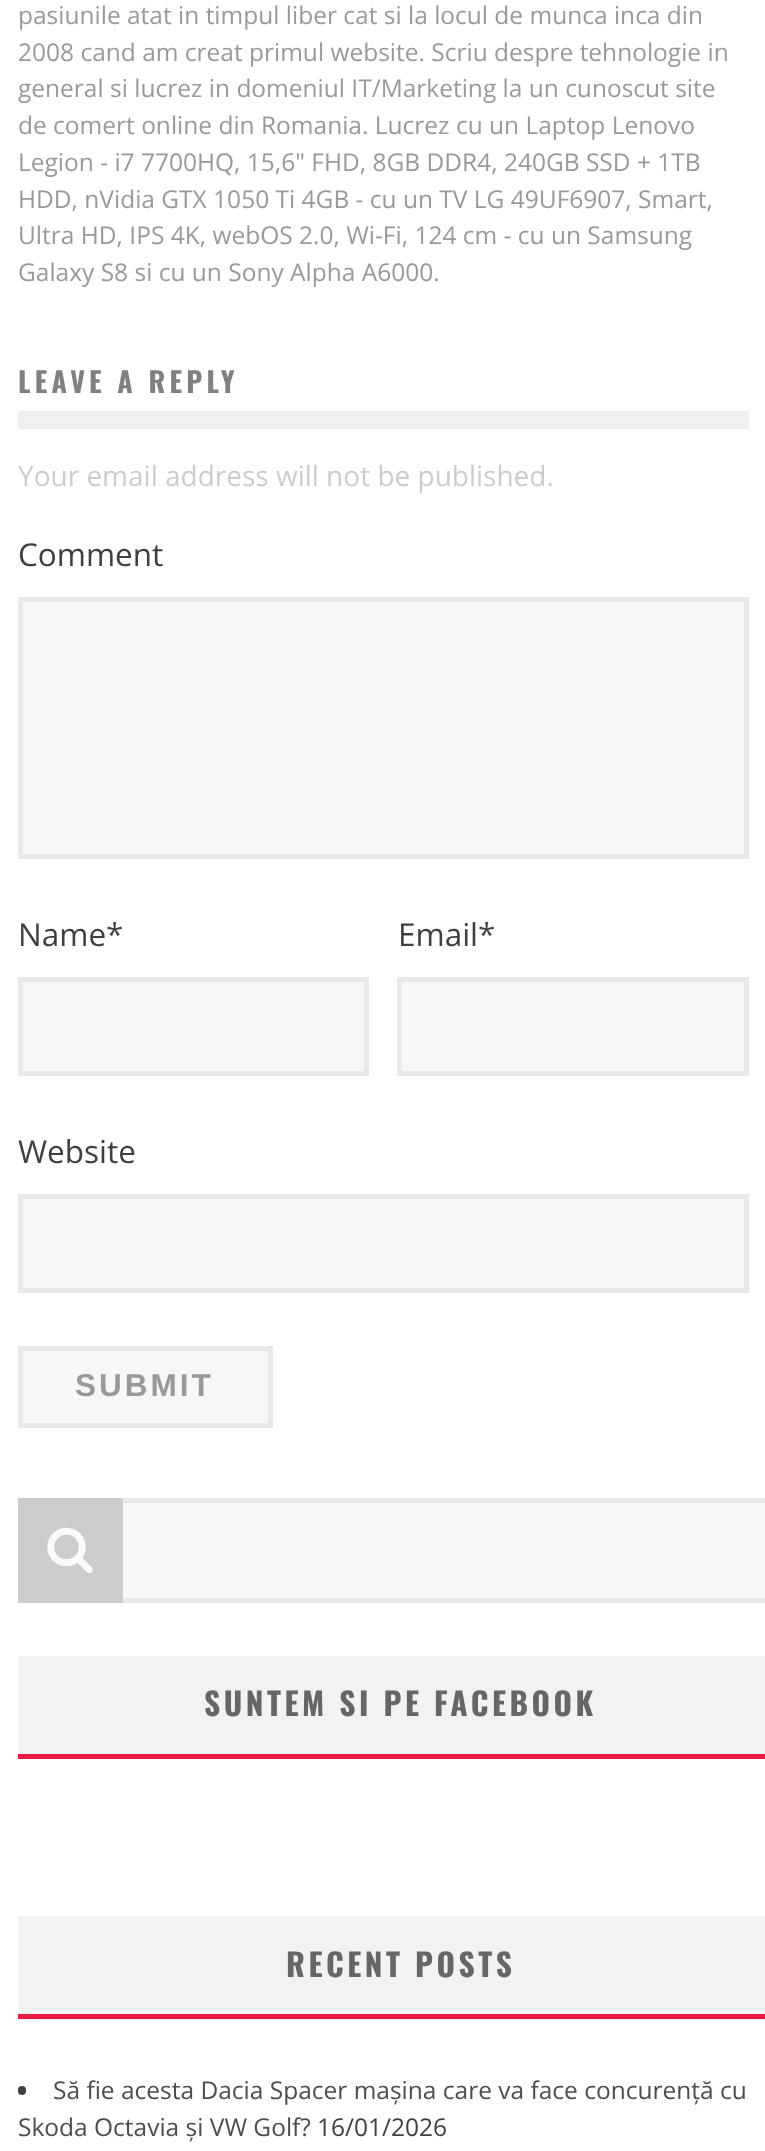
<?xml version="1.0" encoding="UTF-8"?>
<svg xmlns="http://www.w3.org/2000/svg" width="765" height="2151">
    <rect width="100%" height="100%" fill="#FFFFFF"/>
    <text font-family="Open Sans" font-size="24.5" fill="#999999">
        <tspan x="18" y="24">pasiunile atat in timpul liber cat si la locul de munca inca din</tspan>
        <tspan x="18" y="61">2008 cand am creat primul website. Scriu despre tehnologie in</tspan>
        <tspan x="18" y="97">general si lucrez in domeniul IT/Marketing la un cunoscut site</tspan>
        <tspan x="18" y="134">de comert online din Romania. Lucrez cu un Laptop Lenovo</tspan>
        <tspan x="18" y="171">Legion - i7 7700HQ, 15,6" FHD, 8GB DDR4, 240GB SSD + 1TB</tspan>
        <tspan x="18" y="208">HDD, nVidia GTX 1050 Ti 4GB - cu un TV LG 49UF6907, Smart,</tspan>
        <tspan x="18" y="244">Ultra HD, IPS 4K, webOS 2.0, Wi-Fi, 124 cm - cu un Samsung</tspan>
        <tspan x="18" y="281">Galaxy S8 si cu un Sony Alpha A6000.</tspan>
    </text>
    <rect x="18" y="411" width="731" height="18" fill="#F0F0F0"/>
    <text x="18" y="393" font-family="Oswald" font-size="28" font-weight="700" letter-spacing="4.25" fill="#808080">LEAVE A REPLY</text>
    <text x="18" y="486" font-family="Open Sans" font-size="28" fill="#CCCCCC">Your email address will not be published.</text>
    <text x="18" y="566" font-family="Open Sans" font-size="31.5" fill="#3F3F3F">Comment</text>
    <rect x="20.5" y="599.5" width="726" height="257" fill="#F7F7F7" stroke="#E9E9E9" stroke-width="5"/>
    <text x="18" y="946" font-family="Open Sans" font-size="31.5" fill="#3F3F3F">Name*</text>
    <rect x="20.5" y="979.5" width="346" height="94" fill="#F7F7F7" stroke="#E9E9E9" stroke-width="5"/>
    <text x="398" y="946" font-family="Open Sans" font-size="31.5" fill="#3F3F3F">Email*</text>
    <rect x="399.5" y="979.5" width="347" height="94" fill="#F7F7F7" stroke="#E9E9E9" stroke-width="5"/>
    <text x="18" y="1163" font-family="Open Sans" font-size="31.5" fill="#3F3F3F">Website</text>
    <rect x="20.5" y="1196.5" width="726" height="94" fill="#F7F7F7" stroke="#E9E9E9" stroke-width="5"/>
    <rect x="20.5" y="1348.5" width="250" height="77" fill="#F7F7F7" stroke="#E9E9E9" stroke-width="5"/>
    <text x="75" y="1396" font-family="Liberation Sans" font-size="31.5" font-weight="700" letter-spacing="3" fill="#999999">SUBMIT</text>
    <rect x="123" y="1503" width="642" height="95" fill="#F7F7F7"/>
    <rect x="20.5" y="1500.5" width="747" height="100" fill="none" stroke="#E9E9E9" stroke-width="5"/>
    <rect x="18" y="1498" width="105" height="105" fill="#CCCCCC"/>
    <image x="47" y="1527" width="46" height="47" href="img_01.png"/>
    <rect x="18" y="1656" width="747" height="98" fill="#F2F2F2"/>
    <rect x="18" y="1754" width="747" height="5" fill="#E61B41"/>
    <text x="204" y="1716" font-family="Oswald" font-size="31.5" font-weight="700" letter-spacing="3.5" fill="#666666">SUNTEM SI PE FACEBOOK</text>
    <rect x="18" y="1916" width="747" height="104" fill="#F2F2F2"/>
    <rect x="18" y="2014" width="747" height="5" fill="#E61B41"/>
    <text x="286" y="1977" font-family="Oswald" font-size="31.5" font-weight="700" letter-spacing="3.5" fill="#666666">RECENT POSTS</text>
    <rect x="18" y="2086" width="8" height="9" rx="4" fill="#3F3F3F"/>
    <text x="53" y="2099" font-family="Open Sans" font-size="24.5" fill="#4D4D4D">Să fie acesta Dacia Spacer mașina care va face concurență cu</text>
    <text x="18" y="2136" font-family="Open Sans" font-size="24.5" fill="#4D4D4D">Skoda Octavia și VW Golf?</text>
    <text x="317" y="2136" font-family="Open Sans" font-size="24.5" fill="#3F3F3F">16/01/2026</text>
</svg>
